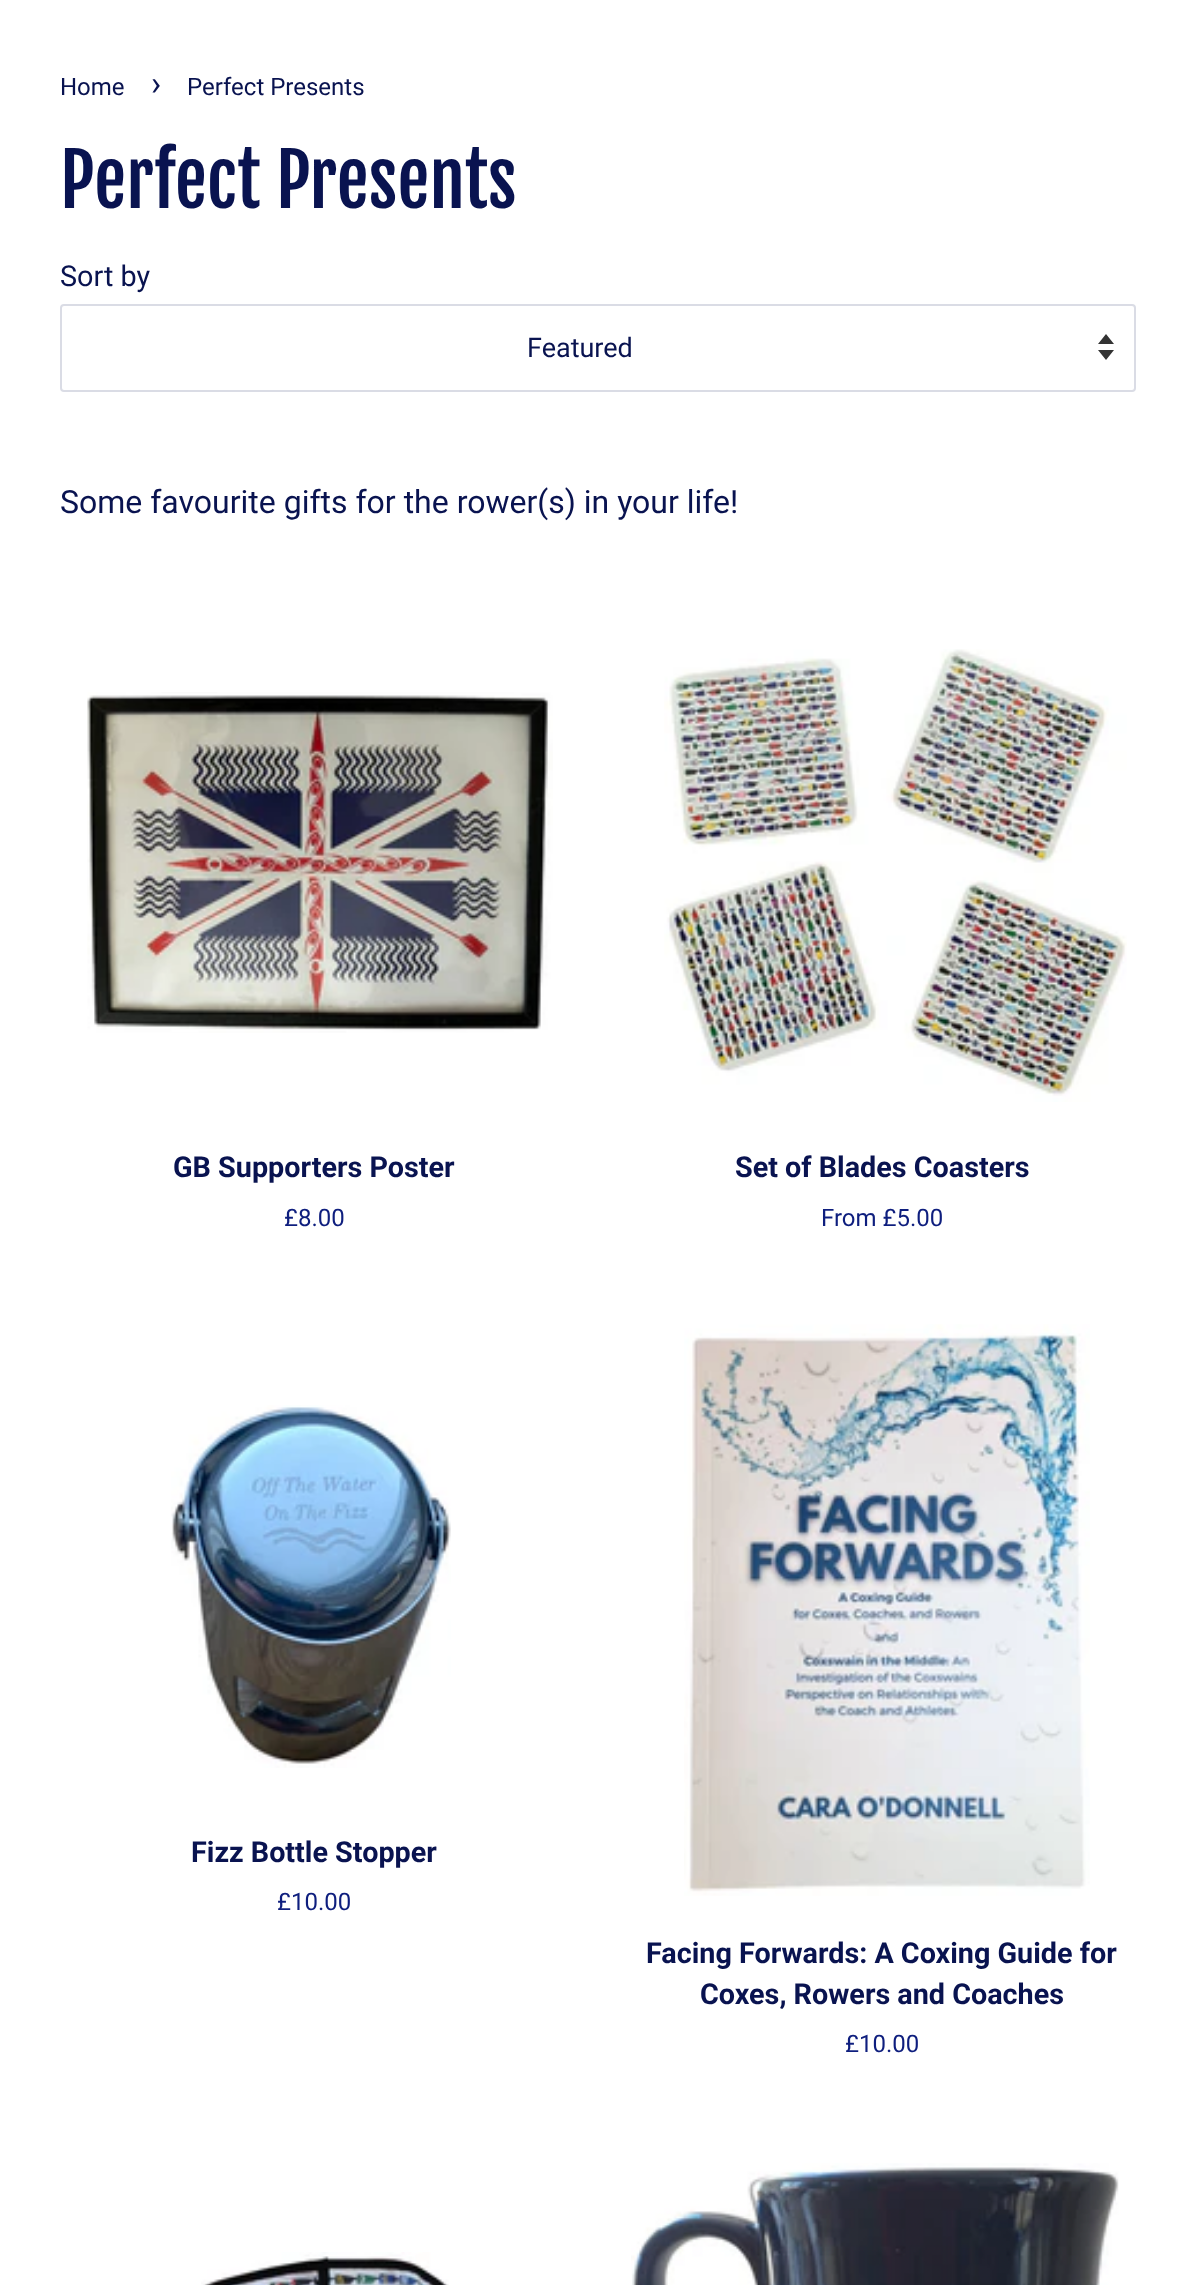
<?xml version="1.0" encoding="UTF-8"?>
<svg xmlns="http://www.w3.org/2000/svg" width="1195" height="2285">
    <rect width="100%" height="100%" fill="#FFFFFF"/>
    <text x="60" y="95" font-family="Roboto" font-size="24" fill="#091350">Home</text>
    <text x="151" y="95" font-family="Roboto" font-size="34" fill="#091350">›</text>
    <text x="187" y="95" font-family="Roboto" font-size="24" fill="#091350">Perfect Presents</text>
    <text x="60" y="208" font-family="Fjalla One" font-size="72" fill="#091350">Perfect Presents</text>
    <text x="60" y="286" font-family="Roboto" font-size="28.75" fill="#091350">Sort by</text>
    <path d="M 1098 350 L 1106 360 L 1114 350 Z M 1106 334 L 1098 344 H 1114 Z" fill="#333333"/>
    <rect x="61" y="305" width="1074" height="86" rx="3" fill="none" stroke="#DADCE5" stroke-width="2"/>
    <text x="527" y="357" font-family="Roboto" font-size="27" fill="#091350">Featured</text>
    <text x="60" y="513" font-family="Roboto" font-size="32" fill="#091350">Some favourite gifts for the rower(s) in your life!</text>
    <image x="87" y="692" width="466" height="341" href="img_01.png"/>
    <text x="173" y="1177" font-family="Roboto" font-size="28.75" font-weight="700" fill="#091350">GB Supporters Poster</text>
    <text x="284" y="1226" font-family="Roboto" font-size="24" fill="#0E1E7E">£8.00</text>
    <image x="664" y="649" width="463" height="453" href="img_02.png"/>
    <text x="735" y="1177" font-family="Roboto" font-size="28.75" font-weight="700" fill="#091350">Set of Blades Coasters</text>
    <text x="821" y="1226" font-family="Roboto" font-size="24" fill="#0E1E7E">From £5.00</text>
    <image x="171" y="1405" width="280" height="363" href="img_03.png"/>
    <text x="191" y="1862" font-family="Roboto" font-size="28.75" font-weight="700" fill="#091350">Fizz Bottle Stopper</text>
    <text x="277" y="1910" font-family="Roboto" font-size="24" fill="#0E1E7E">£10.00</text>
    <image x="684" y="1324" width="406" height="572" href="img_04.png"/>
    <text x="646" y="1963" font-family="Roboto" font-size="28.75" font-weight="700" fill="#091350">Facing Forwards: A Coxing Guide for</text>
    <text x="700" y="2004" font-family="Roboto" font-size="28.75" font-weight="700" fill="#091350">Coxes, Rowers and Coaches</text>
    <text x="845" y="2052" font-family="Roboto" font-size="24" fill="#0E1E7E">£10.00</text>
    <image x="201" y="2252" width="248" height="33" href="img_05.png"/>
    <image x="631" y="2163" width="488" height="122" href="img_06.png"/>
</svg>
